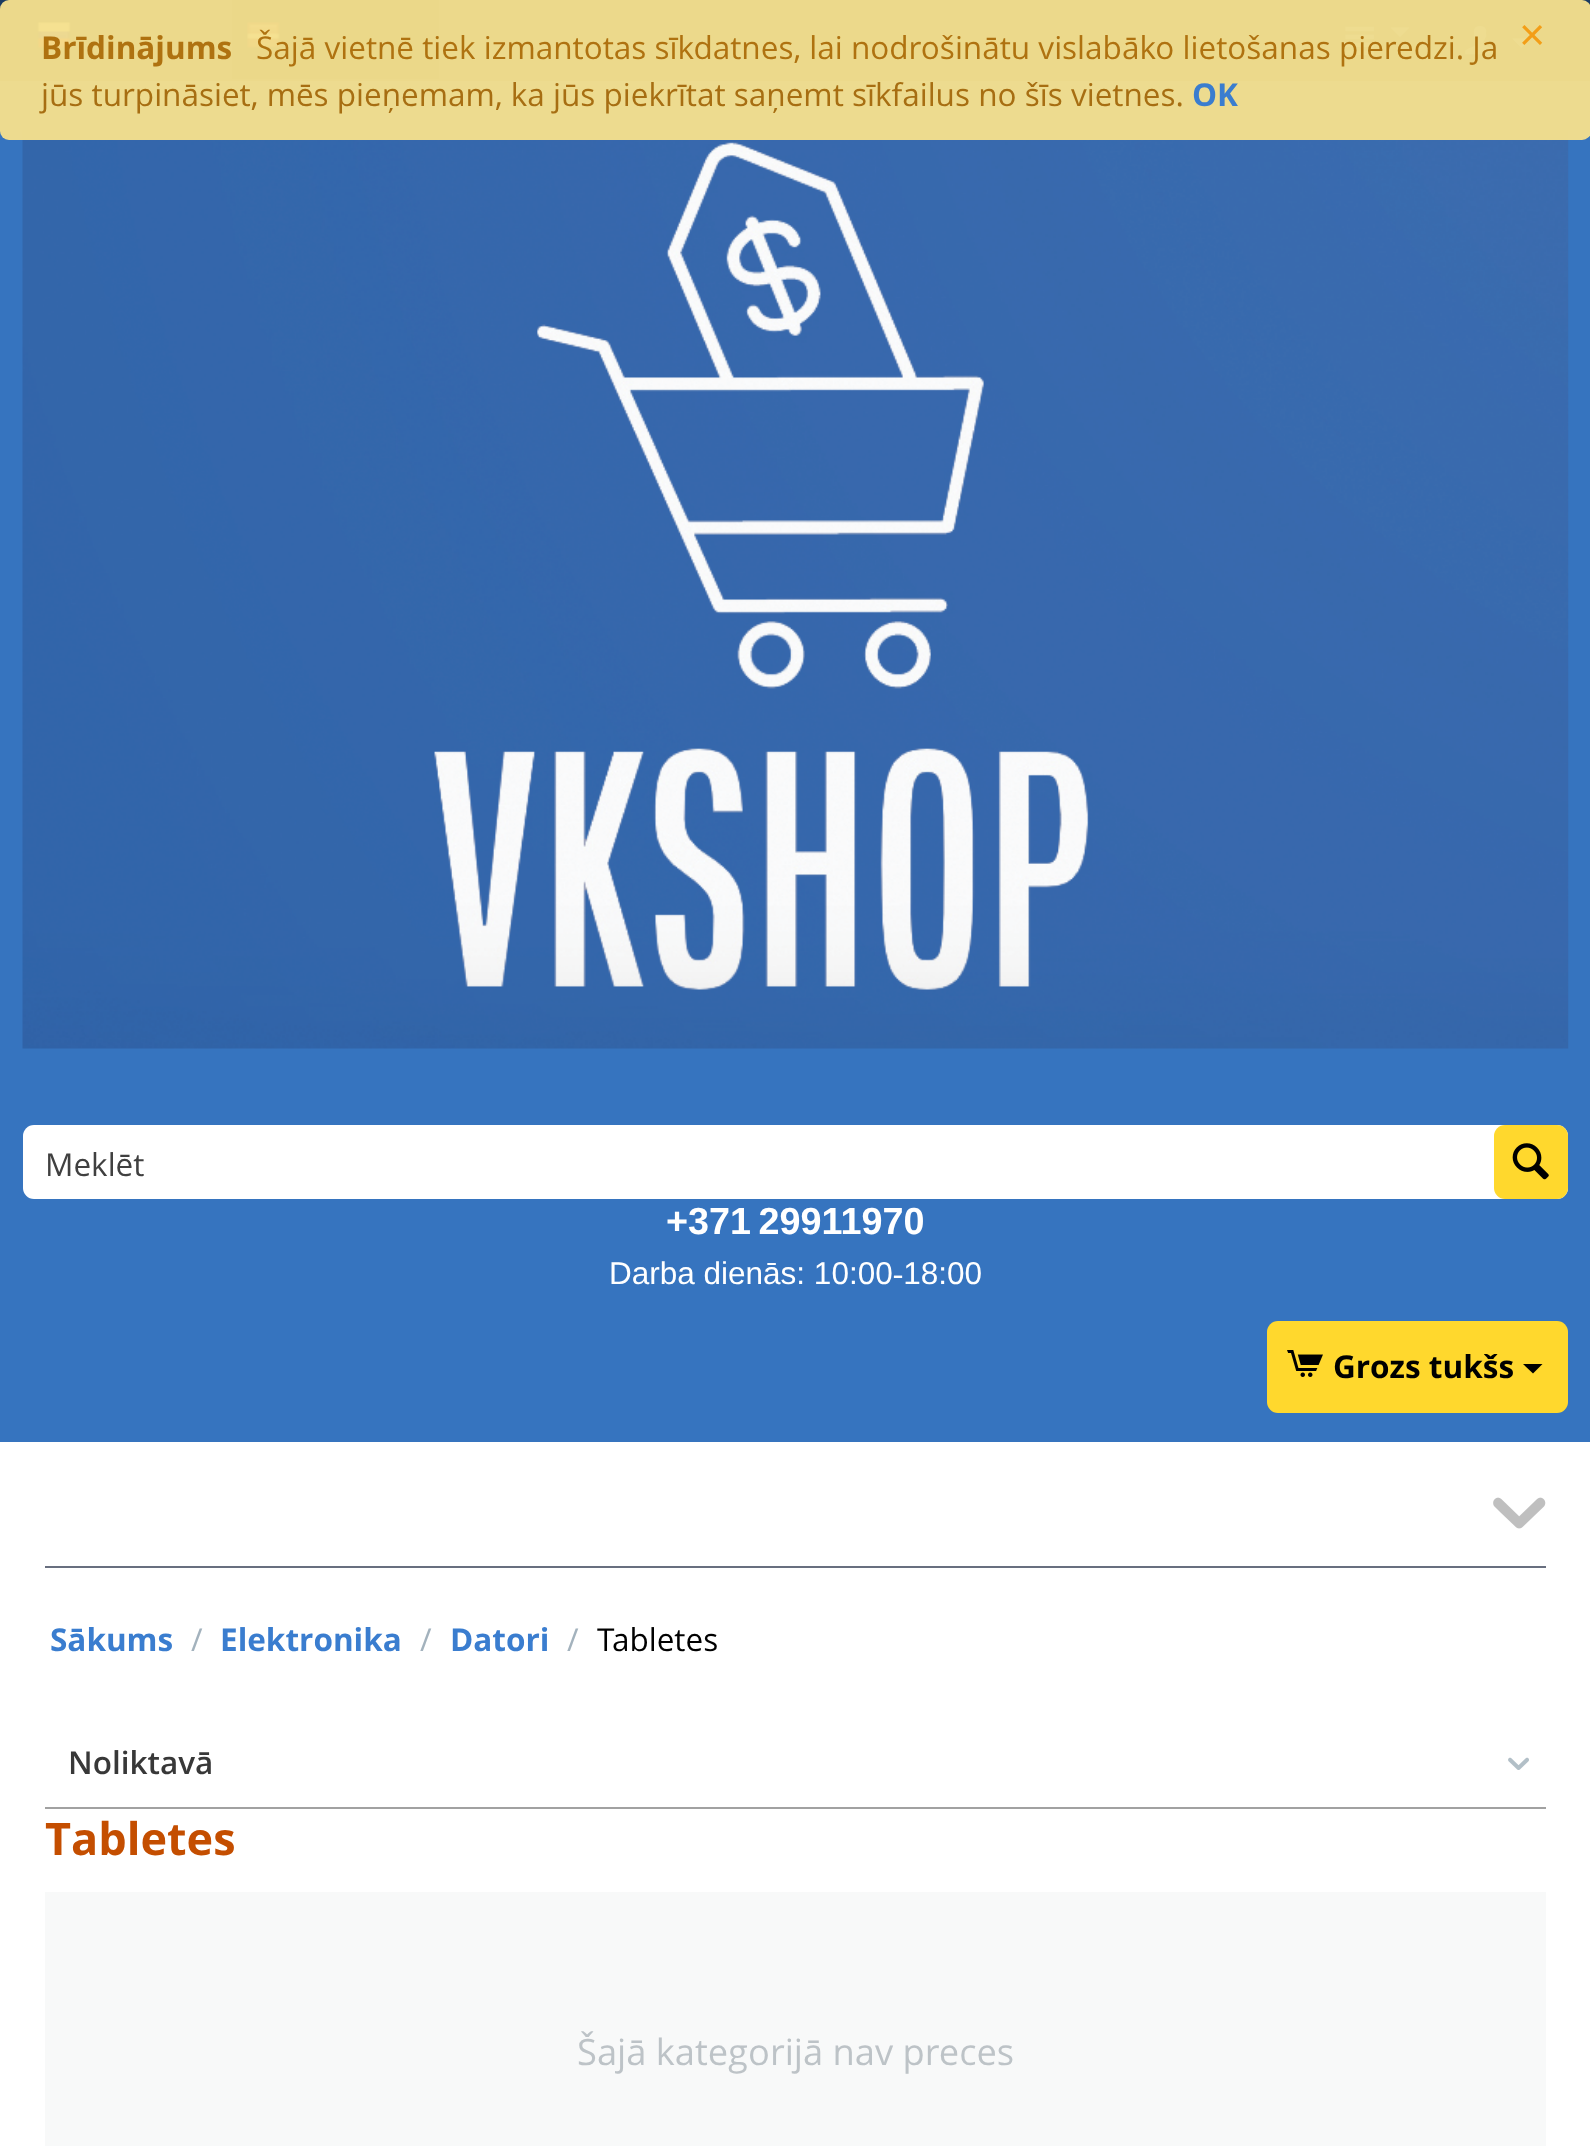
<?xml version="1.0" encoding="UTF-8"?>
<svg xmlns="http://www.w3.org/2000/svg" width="1590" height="2146">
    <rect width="100%" height="100%" fill="#3674BF"/>
    <rect x="0" y="0" width="1590" height="81" fill="#1B3B61"/>
    <image x="37" y="22" width="34" height="29" href="img_01.png"/>
    <rect x="232" y="0" width="207" height="79" fill="#102339"/>
    <image x="247" y="22" width="33" height="28" href="img_02.png"/>
    <image x="1345" y="26" width="29" height="30" href="img_03.png"/>
    <path d="M 1400 37 L 1390.5 27.5 H 1409.5 Z" fill="#4A86E8"/>
    <image x="1465" y="26" width="30" height="29" href="img_04.png"/>
    <path d="M 1521.5 48 L 1512 38.5 H 1531 Z" fill="#4A86E8"/>
    <image x="22" y="130" width="1547" height="919" href="img_05.png"/>
    <rect x="0" y="0" width="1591" height="140" rx="9" fill="#F5E08C" fill-opacity="0.96"/>
    <text x="41" y="59" font-family="Open Sans" font-size="31.5" font-weight="700" fill="#AF7210">Brīdinājums</text>
    <text x="256" y="59" font-family="Open Sans" font-size="31.5" fill="#AF7210">Šajā vietnē tiek izmantotas sīkdatnes, lai nodrošinātu vislabāko lietošanas pieredzi. Ja</text>
    <text x="1519" y="50" font-family="Liberation Sans" font-size="45" fill="#F39E17">×</text>
    <text x="41" y="106" font-family="Open Sans" font-size="31.5" fill="#A76E12">jūs turpināsiet, mēs pieņemam, ka jūs piekrītat saņemt sīkfailus no šīs vietnes.</text>
    <text x="1192" y="106" font-family="Open Sans" font-size="31.5" font-weight="700" fill="#3A7DCF">OK</text>
    <rect x="23" y="1125" width="1545" height="74" rx="11" fill="#FFFFFF"/>
    <text x="45" y="1176" font-family="Open Sans" font-size="31.5" fill="#404040">Meklēt</text>
    <rect x="1494" y="1125" width="74" height="74" rx="11" fill="#FFD82D"/>
    <image x="1512" y="1143" width="37" height="37" href="img_06.png"/>
    <text x="666" y="1234" font-family="Liberation Sans" font-size="37.75" font-weight="700" fill="#FFFFFF">+371 29911970</text>
    <text x="609" y="1284" font-family="Liberation Sans" font-size="31.5" fill="#FFFFFF">Darba dienās: 10:00‑18:00</text>
    <rect x="1267" y="1321" width="301" height="92" rx="11" fill="#FFD82D"/>
    <image x="1287" y="1350" width="36" height="27" href="img_07.png"/>
    <text x="1333" y="1378" font-family="Open Sans" font-size="31.5" font-weight="700" fill="#000000">Grozs tukšs</text>
    <path d="M 1533 1373.5 L 1523 1364 H 1542.5 Z" fill="#000000"/>
    <rect x="0" y="1442" width="1590" height="704" fill="#FFFFFF"/>
    <rect x="45" y="1566" width="1501" height="2" fill="#686F7F"/>
    <image x="1493" y="1497" width="53" height="32" href="img_08.png"/>
    <text x="50" y="1651" font-family="Open Sans" font-size="31.5" font-weight="700" fill="#3A7DCF">Sākums</text>
    <text x="191" y="1651" font-family="Open Sans" font-size="31.5" fill="#A3B2BD">/</text>
    <text x="220" y="1651" font-family="Open Sans" font-size="31.5" font-weight="700" fill="#3A7DCF">Elektronika</text>
    <text x="420" y="1651" font-family="Open Sans" font-size="31.5" fill="#A3B2BD">/</text>
    <text x="450" y="1651" font-family="Open Sans" font-size="31.5" font-weight="700" fill="#3A7DCF">Datori</text>
    <text x="567" y="1651" font-family="Open Sans" font-size="31.5" fill="#A3B2BD">/</text>
    <text x="597" y="1651" font-family="Open Sans" font-size="31.5" fill="#000000">Tabletes</text>
    <rect x="45" y="1807" width="1501" height="2" fill="#A1A1A1"/>
    <text x="68" y="1774" font-family="Open Sans" font-size="31.5" font-weight="600" fill="#383838">Noliktavā</text>
    <image x="1508" y="1757" width="21" height="13" href="img_09.png"/>
    <text x="45" y="1855" font-family="Open Sans" font-size="45" font-weight="700" fill="#C44E00">Tabletes</text>
    <rect x="45" y="1892" width="1501" height="254" fill="#F8F9F9"/>
    <text x="577" y="2065" font-family="Open Sans" font-size="36.25" fill="#BDC3C7">Šajā kategorijā nav preces</text>
</svg>
